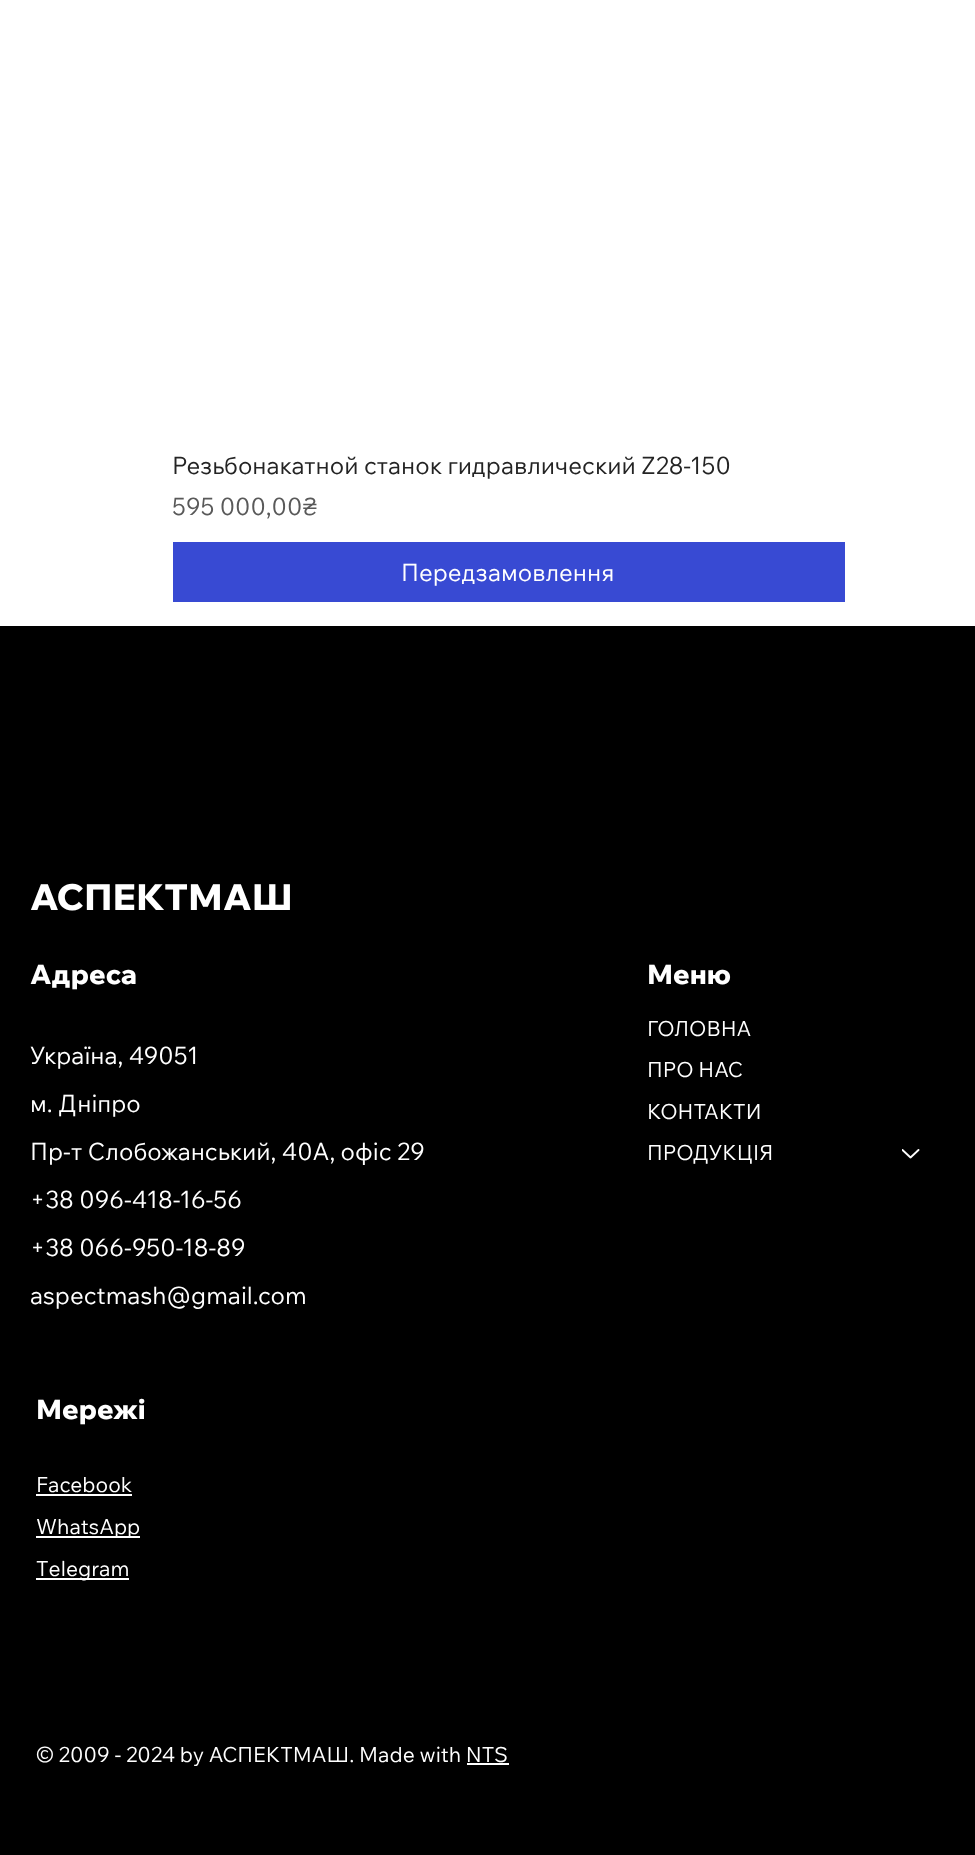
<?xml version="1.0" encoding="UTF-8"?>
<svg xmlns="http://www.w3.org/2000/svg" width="975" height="1855">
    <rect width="100%" height="100%" fill="#FFFFFF"/>
    <text x="172" y="474" font-family="Wix Madefor Text" font-size="24" fill="#242424">Резьбонакатной станок гидравлический Z28-150</text>
    <text x="172" y="515" font-family="Wix Madefor Text" font-size="24" fill="#595959">595 000,00₴</text>
    <rect x="173" y="542" width="672" height="60" fill="#384AD3"/>
    <text x="401" y="581" font-family="Wix Madefor Text" font-size="24" fill="#FFFFFF">Передзамовлення</text>
    <rect x="0" y="626" width="975" height="1229" fill="#000000"/>
    <text x="30" y="910" font-family="Wix Madefor Display" font-size="36" font-weight="800" fill="#FFFFFF">АСПЕКТМАШ</text>
    <text x="30" y="984" font-family="Wix Madefor Display" font-size="27" font-weight="800" fill="#FFFFFF">Адреса</text>
    <text x="30" y="1064" font-family="Wix Madefor Text" font-size="24" fill="#FFFFFF">Україна, 49051</text>
    <text x="30" y="1112" font-family="Wix Madefor Text" font-size="24" fill="#FFFFFF">м. Дніпро</text>
    <text x="30" y="1160" font-family="Wix Madefor Text" font-size="24" fill="#FFFFFF">Пр-т Слобожанський, 40А, офіс 29</text>
    <text x="30" y="1208" font-family="Wix Madefor Text" font-size="24" fill="#FFFFFF">+38 096-418-16-56</text>
    <text x="30" y="1256" font-family="Wix Madefor Text" font-size="24" fill="#FFFFFF">+38 066-950-18-89</text>
    <text x="30" y="1304" font-family="Wix Madefor Text" font-size="24" fill="#FFFFFF">aspectmash@gmail.com</text>
    <text x="647" y="984" font-family="Wix Madefor Display" font-size="27" font-weight="800" fill="#FFFFFF">Меню</text>
    <text font-family="Wix Madefor Text" font-size="21" fill="#FFFFFF">
        <tspan x="647" y="1036">ГОЛОВНА</tspan>
        <tspan x="647" y="1077">ПРО НАС</tspan>
    </text>
    <text font-family="Wix Madefor Text" font-size="21" fill="#FFFFFF">
        <tspan x="647" y="1119">КОНТАКТИ</tspan>
        <tspan x="647" y="1160">ПРОДУКЦІЯ</tspan>
    </text>
    <image x="902" y="1149" width="18" height="10" href="img_01.png"/>
    <text x="36" y="1419" font-family="Wix Madefor Display" font-size="27" font-weight="800" fill="#FFFFFF">Мережі</text>
    <text x="36" y="1492" font-family="Wix Madefor Text" font-size="21" fill="#FFFFFF">Facebook</text>
    <rect x="36" y="1494" width="96" height="2" fill="#FFFFFF"/>
    <rect x="36" y="1536" width="104" height="2" fill="#FFFFFF"/>
    <text x="36" y="1534" font-family="Wix Madefor Text" font-size="21" fill="#FFFFFF">WhatsApp</text>
    <rect x="36" y="1578" width="93" height="2" fill="#FFFFFF"/>
    <text x="36" y="1576" font-family="Wix Madefor Text" font-size="21" fill="#FFFFFF">Тelegram</text>
    <text x="36" y="1762" font-family="Wix Madefor Text" font-size="21" fill="#FFFFFF">© 2009 - 2024 by АСПЕКТМАШ. Made with NTS</text>
    <rect x="467" y="1763" width="42" height="2" fill="#FFFFFF"/>
</svg>
